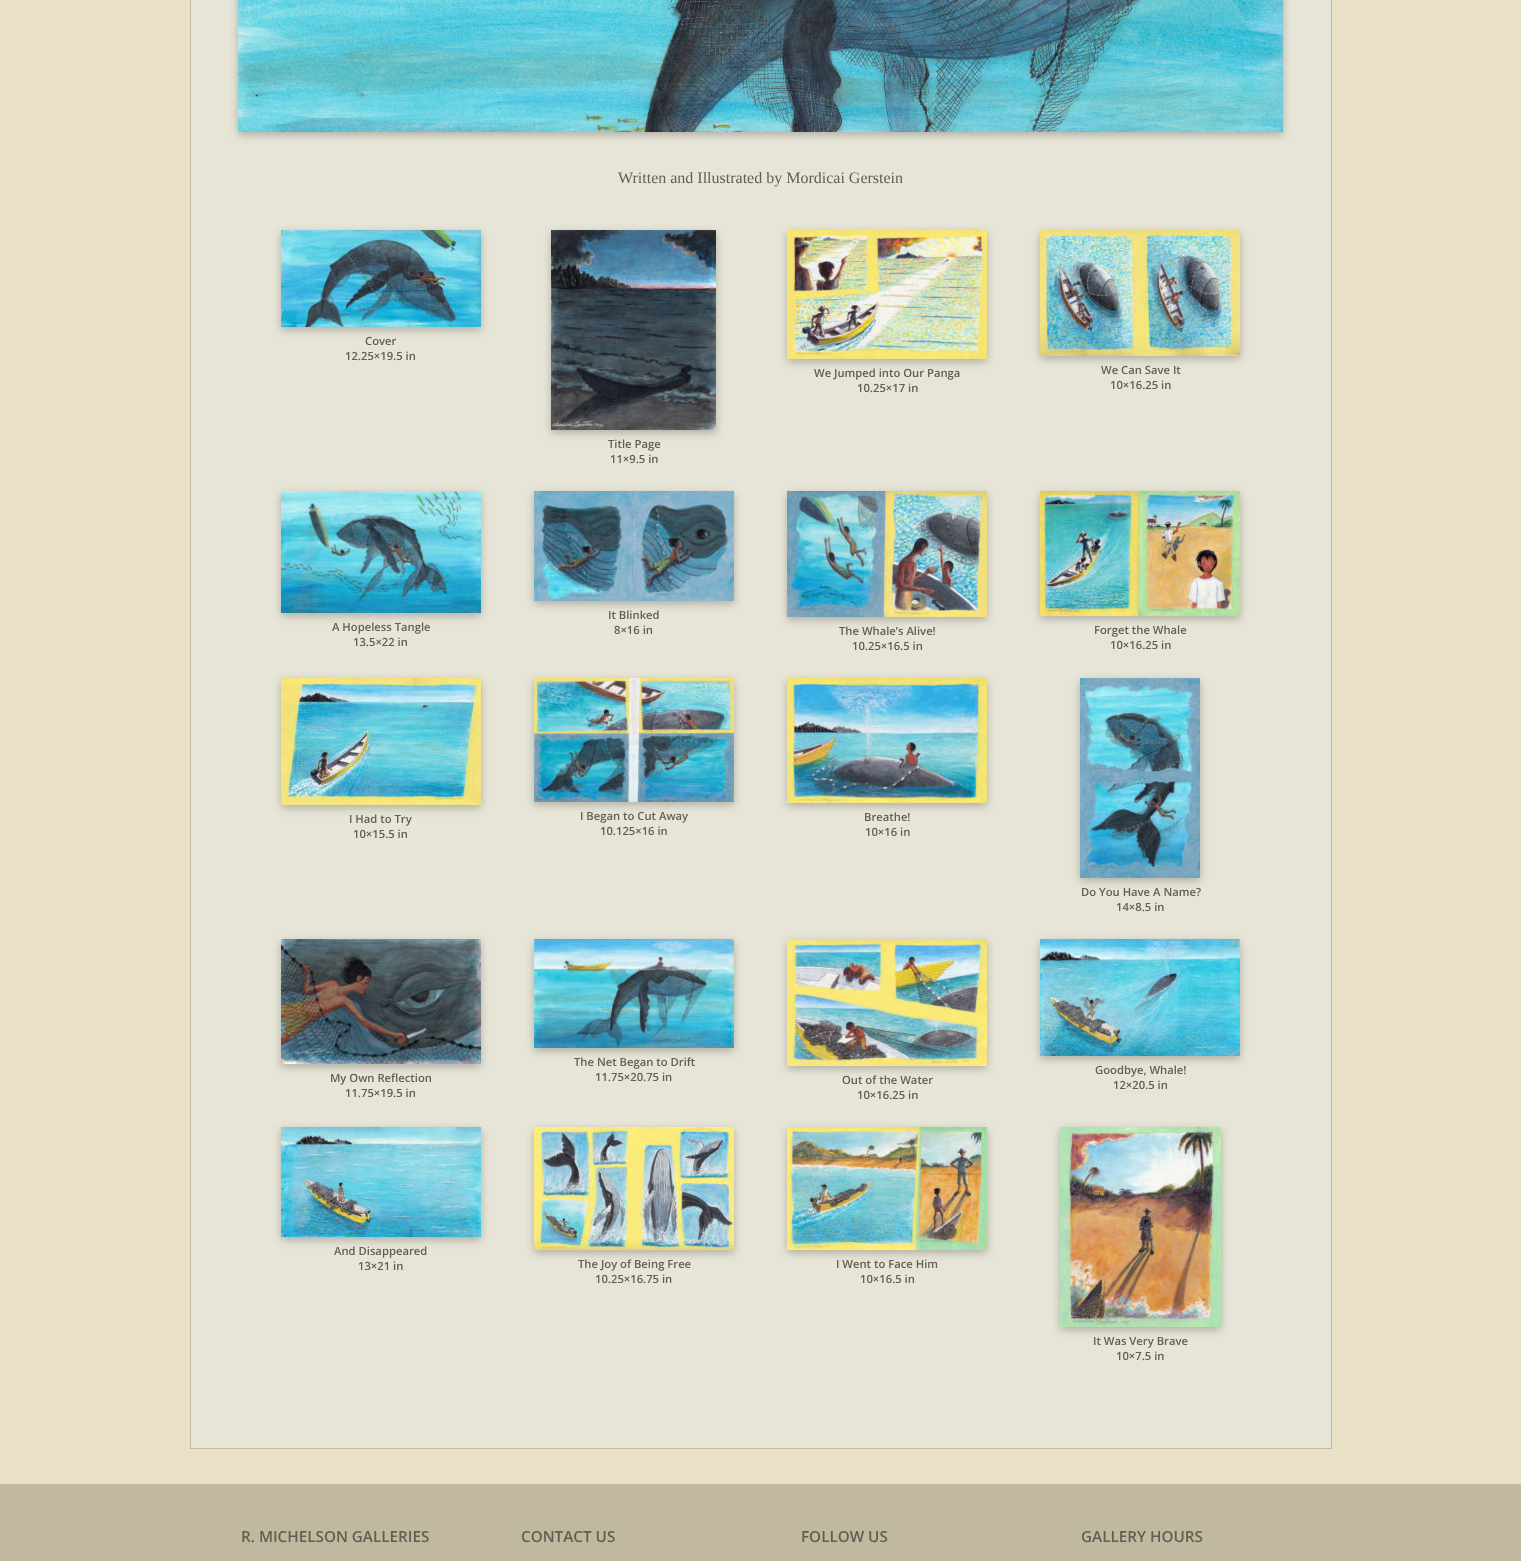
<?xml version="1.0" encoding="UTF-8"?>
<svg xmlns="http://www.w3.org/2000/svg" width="1521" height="1561">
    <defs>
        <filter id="blur1" x="-50%" y="-200%" width="200%" height="500%"><feGaussianBlur stdDeviation="4"/></filter>
    </defs>
    <rect width="100%" height="100%" fill="#E8E1C6"/>
    <rect x="190.5" y="-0.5" width="1141" height="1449" fill="#E7E5D7" stroke="#C0B99F"/>
    <rect x="238" y="-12" width="1045" height="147" fill="#000000" fill-opacity="0.24" filter="url(#blur1)"/>
    <image x="238" y="0" width="1045" height="132" href="img_01.png"/>
    <text x="618" y="183" font-family="Liberation Serif" font-size="16" fill="#625E51">Written and Illustrated by Mordicai Gerstein</text>
    <rect x="281" y="233" width="200" height="97" fill="#000000" fill-opacity="0.24" filter="url(#blur1)"/>
    <image x="281" y="230" width="200" height="97" href="img_02.png"/>
    <text x="365" y="345" font-family="Open Sans" font-size="11.25" font-weight="600" fill="#625E51">Cover</text>
    <text x="345" y="360" font-family="Open Sans" font-size="11.25" font-weight="600" fill="#625E51">12.25×19.5 in</text>
    <rect x="787" y="233" width="200" height="129" fill="#000000" fill-opacity="0.24" filter="url(#blur1)"/>
    <image x="787" y="230" width="200" height="129" href="img_03.png"/>
    <text x="814" y="377" font-family="Open Sans" font-size="11.25" font-weight="600" fill="#625E51">We Jumped into Our Panga</text>
    <text x="857" y="392" font-family="Open Sans" font-size="11.25" font-weight="600" fill="#625E51">10.25×17 in</text>
    <rect x="1040" y="233" width="200" height="126" fill="#000000" fill-opacity="0.24" filter="url(#blur1)"/>
    <image x="1040" y="230" width="200" height="126" href="img_04.png"/>
    <text x="1101" y="374" font-family="Open Sans" font-size="11.25" font-weight="600" fill="#625E51">We Can Save It</text>
    <text x="1110" y="389" font-family="Open Sans" font-size="11.25" font-weight="600" fill="#625E51">10×16.25 in</text>
    <rect x="551" y="233" width="165" height="200" fill="#000000" fill-opacity="0.24" filter="url(#blur1)"/>
    <image x="551" y="230" width="165" height="200" href="img_05.png"/>
    <text x="608" y="448" font-family="Open Sans" font-size="11.25" font-weight="600" fill="#625E51">Title Page</text>
    <text x="610" y="463" font-family="Open Sans" font-size="11.25" font-weight="600" fill="#625E51">11×9.5 in</text>
    <rect x="281" y="494" width="200" height="122" fill="#000000" fill-opacity="0.24" filter="url(#blur1)"/>
    <image x="281" y="491" width="200" height="122" href="img_06.png"/>
    <text x="332" y="631" font-family="Open Sans" font-size="11.25" font-weight="600" fill="#625E51">A Hopeless Tangle</text>
    <text x="353" y="646" font-family="Open Sans" font-size="11.25" font-weight="600" fill="#625E51">13.5×22 in</text>
    <rect x="534" y="494" width="200" height="110" fill="#000000" fill-opacity="0.24" filter="url(#blur1)"/>
    <image x="534" y="491" width="200" height="110" href="img_07.png"/>
    <text x="608" y="619" font-family="Open Sans" font-size="11.25" font-weight="600" fill="#625E51">It Blinked</text>
    <text x="614" y="634" font-family="Open Sans" font-size="11.25" font-weight="600" fill="#625E51">8×16 in</text>
    <rect x="787" y="494" width="200" height="126" fill="#000000" fill-opacity="0.24" filter="url(#blur1)"/>
    <image x="787" y="491" width="200" height="126" href="img_08.png"/>
    <text x="839" y="635" font-family="Open Sans" font-size="11.25" font-weight="600" fill="#625E51">The Whale’s Alive!</text>
    <text x="852" y="650" font-family="Open Sans" font-size="11.25" font-weight="600" fill="#625E51">10.25×16.5 in</text>
    <rect x="1040" y="494" width="200" height="125" fill="#000000" fill-opacity="0.24" filter="url(#blur1)"/>
    <image x="1040" y="491" width="200" height="125" href="img_09.png"/>
    <text x="1094" y="634" font-family="Open Sans" font-size="11.25" font-weight="600" fill="#625E51">Forget the Whale</text>
    <text x="1110" y="649" font-family="Open Sans" font-size="11.25" font-weight="600" fill="#625E51">10×16.25 in</text>
    <rect x="281" y="681" width="200" height="127" fill="#000000" fill-opacity="0.24" filter="url(#blur1)"/>
    <image x="281" y="678" width="200" height="127" href="img_10.png"/>
    <text x="349" y="823" font-family="Open Sans" font-size="11.25" font-weight="600" fill="#625E51">I Had to Try</text>
    <text x="353" y="838" font-family="Open Sans" font-size="11.25" font-weight="600" fill="#625E51">10×15.5 in</text>
    <rect x="534" y="681" width="200" height="124" fill="#000000" fill-opacity="0.24" filter="url(#blur1)"/>
    <image x="534" y="678" width="200" height="124" href="img_11.png"/>
    <text x="580" y="820" font-family="Open Sans" font-size="11.25" font-weight="600" fill="#625E51">I Began to Cut Away</text>
    <text x="600" y="835" font-family="Open Sans" font-size="11.25" font-weight="600" fill="#625E51">10.125×16 in</text>
    <rect x="787" y="681" width="200" height="125" fill="#000000" fill-opacity="0.24" filter="url(#blur1)"/>
    <image x="787" y="678" width="200" height="125" href="img_12.png"/>
    <text x="864" y="821" font-family="Open Sans" font-size="11.25" font-weight="600" fill="#625E51">Breathe!</text>
    <text x="865" y="836" font-family="Open Sans" font-size="11.25" font-weight="600" fill="#625E51">10×16 in</text>
    <rect x="1080" y="681" width="120" height="200" fill="#000000" fill-opacity="0.24" filter="url(#blur1)"/>
    <image x="1080" y="678" width="120" height="200" href="img_13.png"/>
    <text x="1081" y="896" font-family="Open Sans" font-size="11.25" font-weight="600" fill="#625E51">Do You Have A Name?</text>
    <text x="1116" y="911" font-family="Open Sans" font-size="11.25" font-weight="600" fill="#625E51">14×8.5 in</text>
    <rect x="281" y="942" width="200" height="125" fill="#000000" fill-opacity="0.24" filter="url(#blur1)"/>
    <image x="281" y="939" width="200" height="125" href="img_14.png"/>
    <text x="330" y="1082" font-family="Open Sans" font-size="11.25" font-weight="600" fill="#625E51">My Own Reflection</text>
    <text x="345" y="1097" font-family="Open Sans" font-size="11.25" font-weight="600" fill="#625E51">11.75×19.5 in</text>
    <rect x="534" y="942" width="200" height="109" fill="#000000" fill-opacity="0.24" filter="url(#blur1)"/>
    <image x="534" y="939" width="200" height="109" href="img_15.png"/>
    <text x="574" y="1066" font-family="Open Sans" font-size="11.25" font-weight="600" fill="#625E51">The Net Began to Drift</text>
    <text x="595" y="1081" font-family="Open Sans" font-size="11.25" font-weight="600" fill="#625E51">11.75×20.75 in</text>
    <rect x="787" y="942" width="200" height="127" fill="#000000" fill-opacity="0.24" filter="url(#blur1)"/>
    <image x="787" y="939" width="200" height="127" href="img_16.png"/>
    <text x="842" y="1084" font-family="Open Sans" font-size="11.25" font-weight="600" fill="#625E51">Out of the Water</text>
    <text x="857" y="1099" font-family="Open Sans" font-size="11.25" font-weight="600" fill="#625E51">10×16.25 in</text>
    <rect x="1040" y="942" width="200" height="117" fill="#000000" fill-opacity="0.24" filter="url(#blur1)"/>
    <image x="1040" y="939" width="200" height="117" href="img_17.png"/>
    <text x="1095" y="1074" font-family="Open Sans" font-size="11.25" font-weight="600" fill="#625E51">Goodbye, Whale!</text>
    <text x="1113" y="1089" font-family="Open Sans" font-size="11.25" font-weight="600" fill="#625E51">12×20.5 in</text>
    <rect x="281" y="1130" width="200" height="110" fill="#000000" fill-opacity="0.24" filter="url(#blur1)"/>
    <image x="281" y="1127" width="200" height="110" href="img_18.png"/>
    <text x="334" y="1255" font-family="Open Sans" font-size="11.25" font-weight="600" fill="#625E51">And Disappeared</text>
    <text x="358" y="1270" font-family="Open Sans" font-size="11.25" font-weight="600" fill="#625E51">13×21 in</text>
    <rect x="534" y="1130" width="200" height="123" fill="#000000" fill-opacity="0.24" filter="url(#blur1)"/>
    <image x="534" y="1127" width="200" height="123" href="img_19.png"/>
    <text x="578" y="1268" font-family="Open Sans" font-size="11.25" font-weight="600" fill="#625E51">The Joy of Being Free</text>
    <text x="595" y="1283" font-family="Open Sans" font-size="11.25" font-weight="600" fill="#625E51">10.25×16.75 in</text>
    <rect x="787" y="1130" width="200" height="123" fill="#000000" fill-opacity="0.24" filter="url(#blur1)"/>
    <image x="787" y="1127" width="200" height="123" href="img_20.png"/>
    <text x="836" y="1268" font-family="Open Sans" font-size="11.25" font-weight="600" fill="#625E51">I Went to Face Him</text>
    <text x="860" y="1283" font-family="Open Sans" font-size="11.25" font-weight="600" fill="#625E51">10×16.5 in</text>
    <rect x="1060" y="1130" width="161" height="200" fill="#000000" fill-opacity="0.24" filter="url(#blur1)"/>
    <image x="1060" y="1127" width="161" height="200" href="img_21.png"/>
    <text x="1093" y="1345" font-family="Open Sans" font-size="11.25" font-weight="600" fill="#625E51">It Was Very Brave</text>
    <text x="1116" y="1360" font-family="Open Sans" font-size="11.25" font-weight="600" fill="#625E51">10×7.5 in</text>
    <rect x="0" y="1484" width="1521" height="77" fill="#C0B99F"/>
    <text x="241" y="1542" font-family="Open Sans" font-size="15.25" font-weight="600" fill="#625E51">R. MICHELSON GALLERIES</text>
    <text x="521" y="1542" font-family="Open Sans" font-size="15.25" font-weight="600" fill="#625E51">CONTACT US</text>
    <text x="801" y="1542" font-family="Open Sans" font-size="15.25" font-weight="600" fill="#625E51">FOLLOW US</text>
    <text x="1081" y="1542" font-family="Open Sans" font-size="15.25" font-weight="600" fill="#625E51">GALLERY HOURS</text>
</svg>
